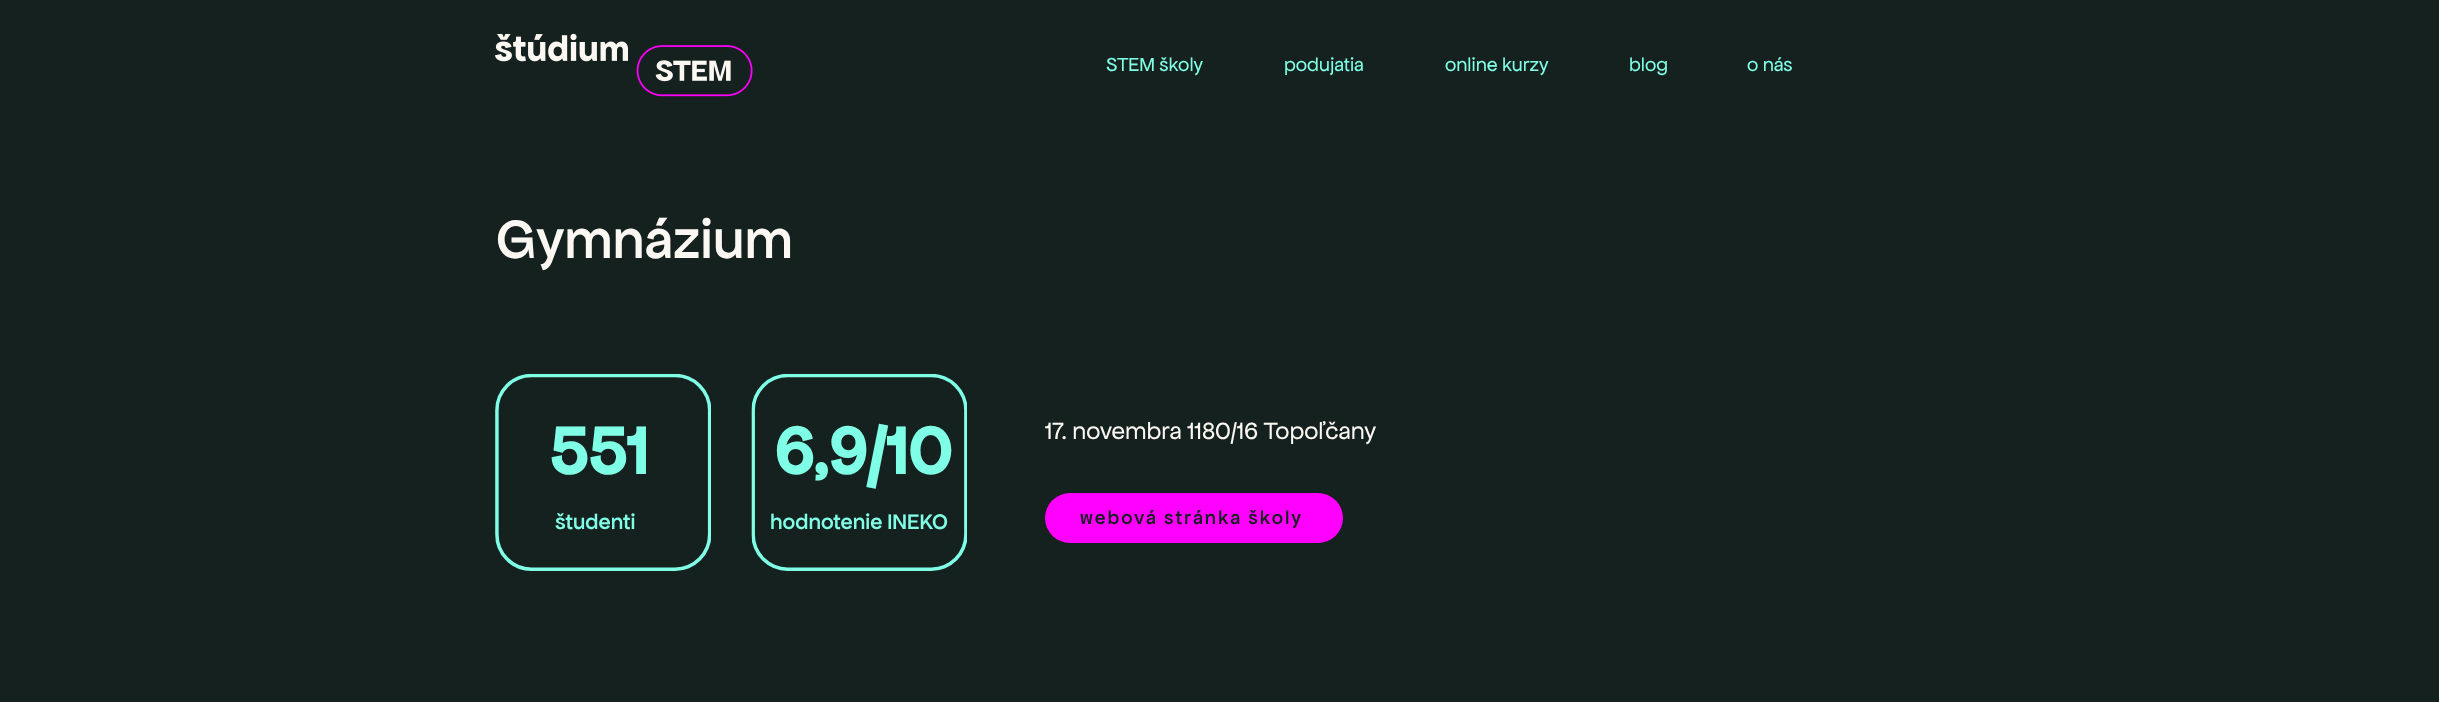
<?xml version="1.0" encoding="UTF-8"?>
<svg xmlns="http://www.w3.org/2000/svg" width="2439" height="702">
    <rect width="100%" height="100%" fill="#15211E"/>
    <image x="495" y="33" width="258" height="64" href="img_01.png"/>
    <text x="1106" y="71" font-family="'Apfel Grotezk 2'" font-size="20" fill="#80FFE7">STEM školy</text>
    <text x="1284" y="71" font-family="'Apfel Grotezk 2'" font-size="20" fill="#80FFE7">podujatia</text>
    <text x="1445" y="71" font-family="'Apfel Grotezk 2'" font-size="20" fill="#80FFE7">online kurzy</text>
    <text x="1629" y="71" font-family="'Apfel Grotezk 2'" font-size="20" fill="#80FFE7">blog</text>
    <text x="1747" y="71" font-family="'Apfel Grotezk 2'" font-size="20" fill="#80FFE7">o nás</text>
    <text x="496" y="258" font-family="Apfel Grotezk" font-size="57.5" font-weight="500" fill="#FBF8F3">Gymnázium</text>
    <image x="495" y="374" width="216" height="197" href="img_02.png"/>
    <text x="549" y="474" font-family="Apfel Grotezk" font-size="70" font-weight="700" fill="#80FFE7">551</text>
    <text x="555" y="529" font-family="Apfel Grotezk" font-size="22.5" font-weight="500" fill="#80FFE7">študenti</text>
    <image x="751" y="374" width="216" height="197" href="img_03.png"/>
    <text x="774" y="474" font-family="Apfel Grotezk" font-size="70" font-weight="700" fill="#80FFE7">6,9/10</text>
    <text x="770" y="529" font-family="Apfel Grotezk" font-size="22.5" font-weight="500" fill="#80FFE7">hodnotenie INEKO</text>
    <text x="1045" y="439" font-family="Apfel Grotezk" font-size="25" fill="#FBF8F3">17. novembra 1180/16 Topoľčany</text>
    <rect x="1045" y="493" width="298" height="50" rx="25" fill="#FF00FF"/>
    <text x="1080" y="524" font-family="Apfel Grotezk" font-size="20" font-weight="500" letter-spacing="2" fill="#15211E">webová stránka školy</text>
</svg>
